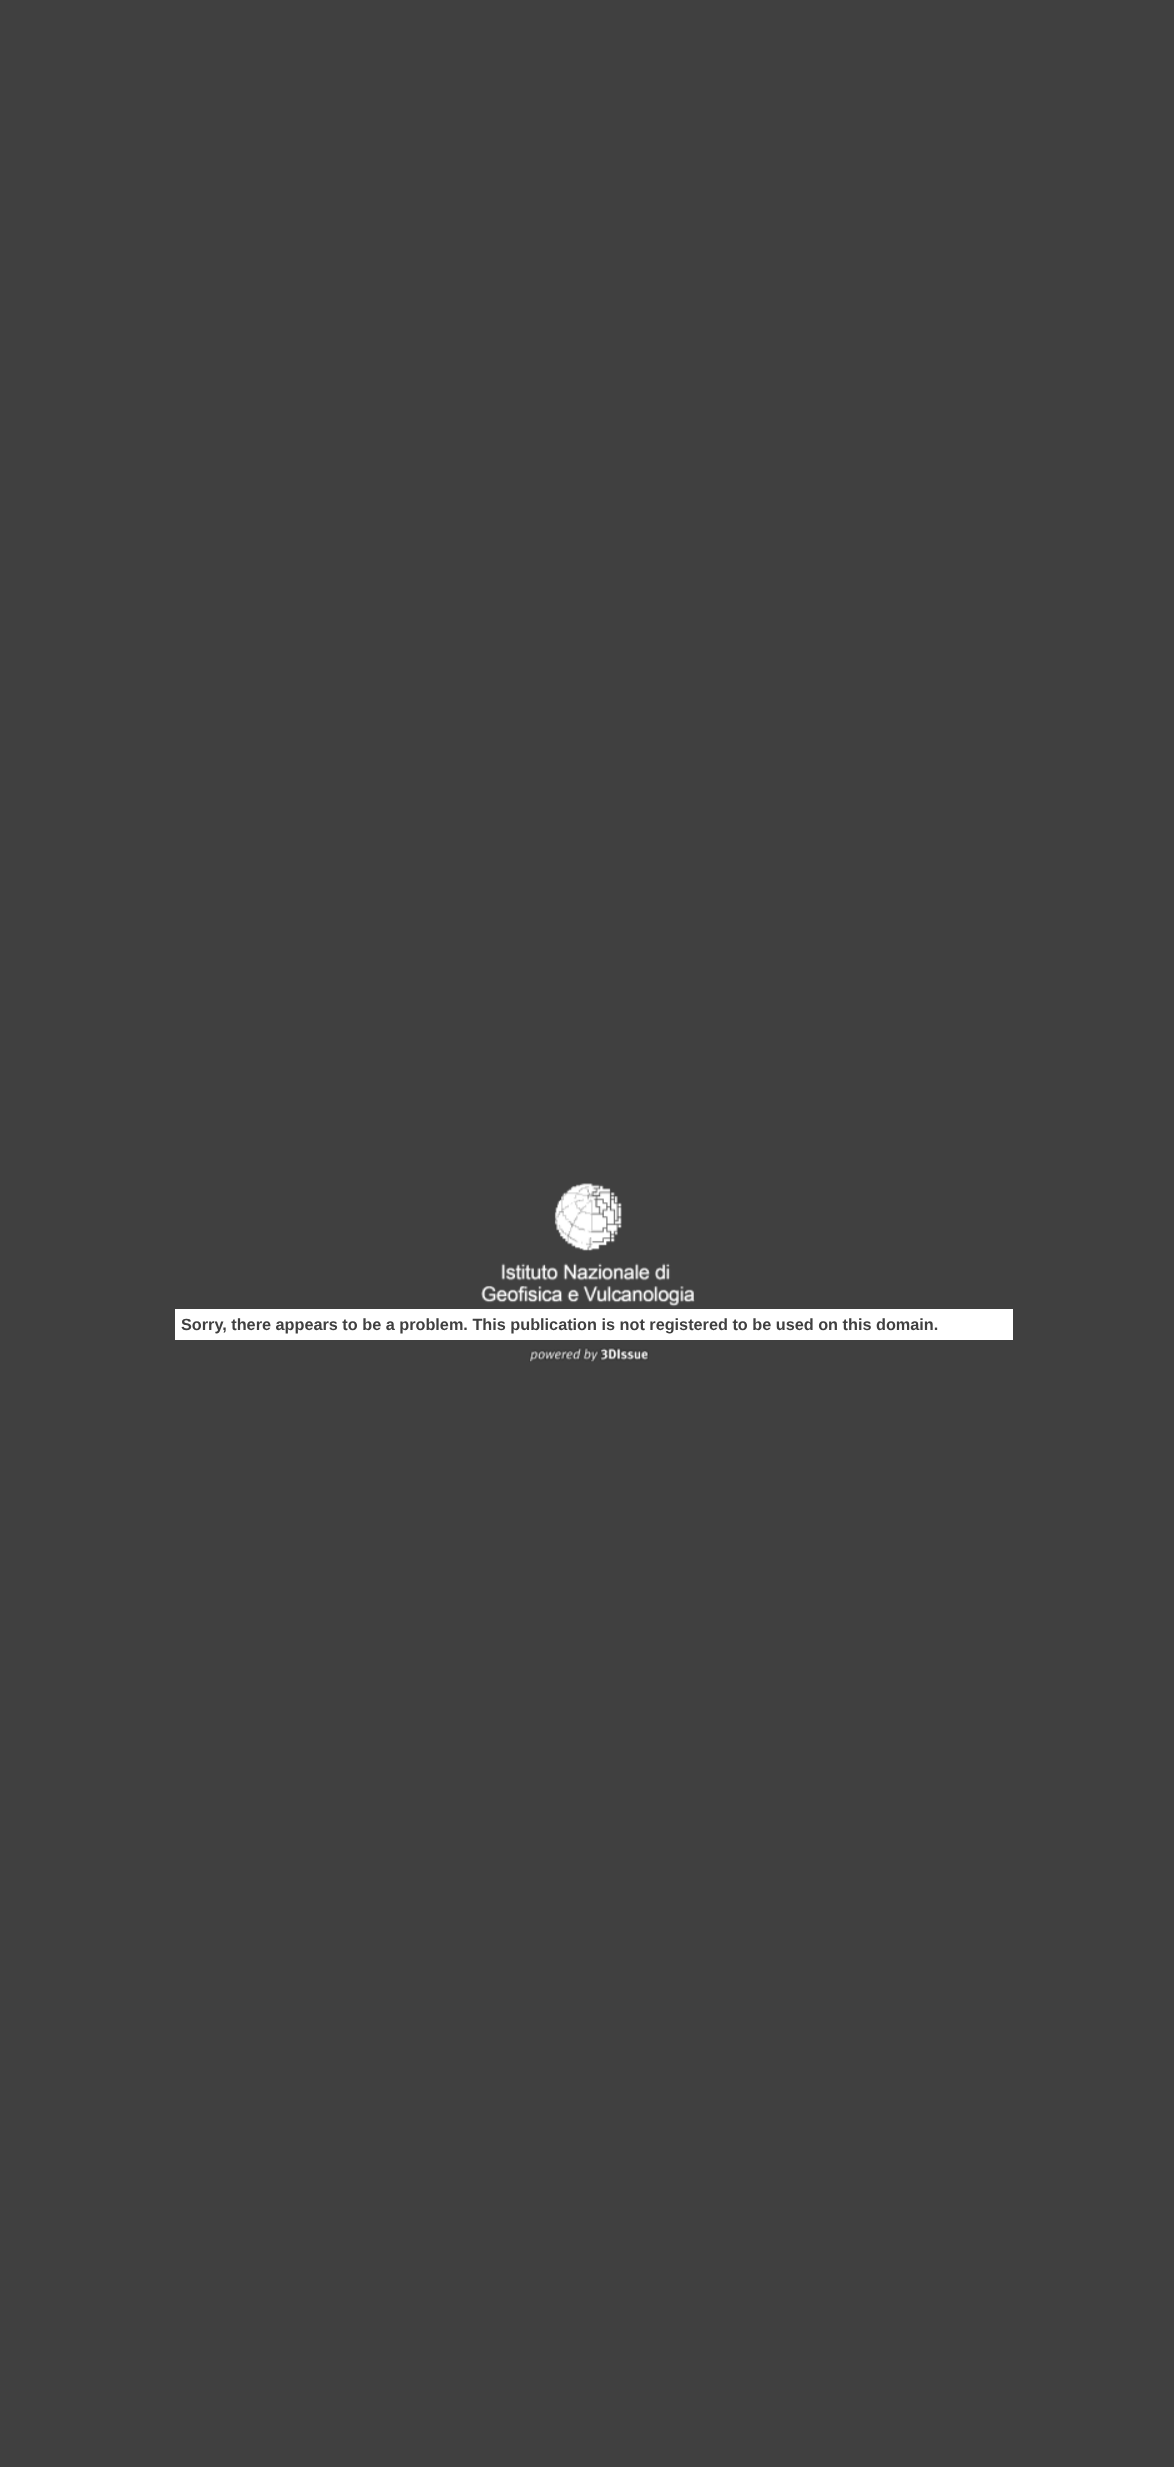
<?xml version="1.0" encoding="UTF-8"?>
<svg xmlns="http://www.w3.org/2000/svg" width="1174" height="2467">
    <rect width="100%" height="100%" fill="#404040"/>
    <image x="481" y="1183" width="214" height="124" href="img_01.png"/>
    <rect x="175" y="1309" width="838" height="31" fill="#FFFFFF"/>
    <text x="181" y="1330" font-family="Liberation Sans" font-size="16.25" font-weight="700" fill="#404040">Sorry, there appears to be a problem. This publication is not registered to be used on this domain.</text>
    <image x="529" y="1347" width="120" height="15" href="img_02.png"/>
</svg>
